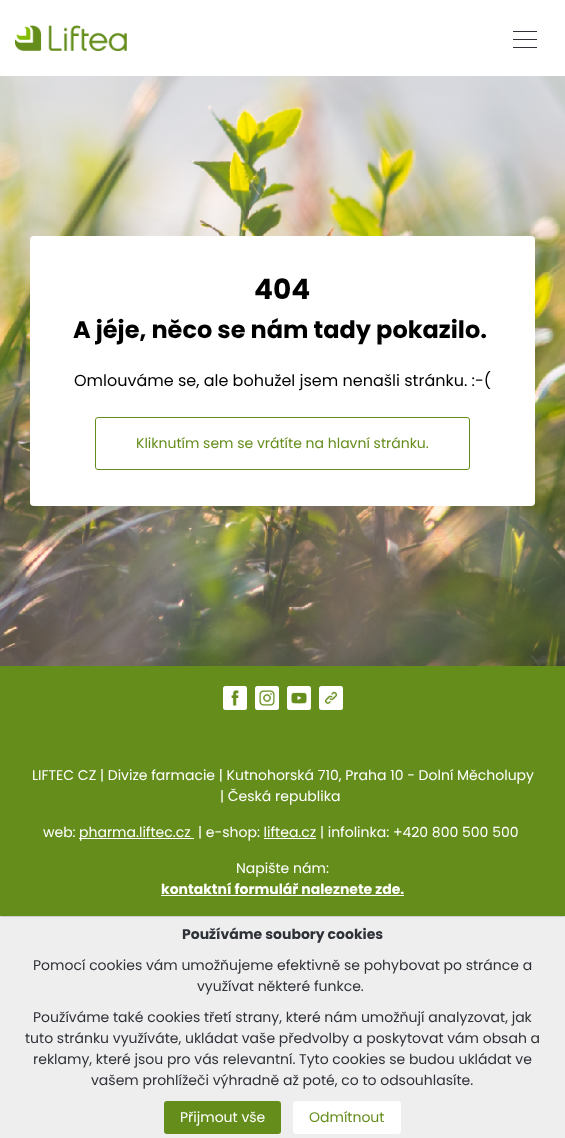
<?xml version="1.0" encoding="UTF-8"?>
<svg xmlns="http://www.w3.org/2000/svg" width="565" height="1138">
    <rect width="100%" height="100%" fill="#FFFFFF"/>
    <image x="15" y="25" width="112" height="26" href="img_01.png"/>
    <rect x="513" y="47" width="24" height="1" fill="#2E3137"/>
    <rect x="513" y="31" width="24" height="1" fill="#2E3137"/>
    <rect x="513" y="39" width="24" height="1" fill="#2E3137"/>
    <image x="0" y="76" width="565" height="590" href="img_02.png"/>
    <rect x="30" y="236" width="505" height="270" rx="4" fill="#FFFFFF"/>
    <text x="254" y="299" font-family="Poppins" font-size="28" font-weight="700" fill="#000000">404</text>
    <text x="73" y="338" font-family="Poppins" font-size="24" font-weight="700" fill="#000000">A jéje, něco se nám tady pokazilo.</text>
    <text x="74" y="386" font-family="Poppins" font-size="16" fill="#000000">Omlouváme se, ale bohužel jsem nenašli stránku. :-(</text>
    <rect x="95.5" y="417.5" width="374" height="52" rx="2.5" fill="none" stroke="#658D1B"/>
    <text x="136" y="448" font-family="Poppins" font-size="14" fill="#658D1B">Kliknutím sem se vrátíte na hlavní stránku.</text>
    <rect x="0" y="666" width="565" height="250" fill="#658D1B"/>
    <image x="223" y="686" width="24" height="24" href="img_03.png"/>
    <image x="255" y="686" width="24" height="24" href="img_04.png"/>
    <image x="287" y="686" width="24" height="24" href="img_05.png"/>
    <image x="319" y="686" width="24" height="24" href="img_06.png"/>
    <text x="32" y="780" font-family="Poppins" font-size="14" fill="#FFFFFF">LIFTEC CZ | Divize farmacie | Kutnohorská 710, Praha 10 - Dolní Měcholupy</text>
    <text x="220" y="801" font-family="Poppins" font-size="14" fill="#FFFFFF">| Česká republika</text>
    <text x="43" y="837" font-family="Poppins" font-size="14" fill="#FFFFFF">web:</text>
    <rect x="79" y="838" width="115" height="1" fill="#FFFFFF"/>
    <text x="79" y="837" font-family="Poppins" font-size="14" fill="#FFFFFF">pharma.liftec.cz</text>
    <text x="198" y="837" font-family="Poppins" font-size="14" fill="#FFFFFF">| e-shop: liftea.cz | infolinka: +420 800 500 500</text>
    <rect x="264" y="838" width="52" height="1" fill="#FFFFFF"/>
    <text x="236" y="873" font-family="Poppins" font-size="14" fill="#FFFFFF">Napište nám:</text>
    <text x="161" y="894" font-family="Poppins" font-size="14" font-weight="700" fill="#FFFFFF">kontaktní formulář naleznete zde.</text>
    <rect x="161" y="895" width="243" height="1" fill="#FFFFFF"/>
    <rect x="0" y="916" width="565" height="222" fill="#EEEEEE"/>
    <path d="M 0 916 H 565 L 564 917 H 1 Z" fill="#CCCCCC"/>
    <text x="182" y="939" font-family="Poppins" font-size="14" font-weight="700" fill="#2E3137">Používáme soubory cookies</text>
    <text x="33" y="970" font-family="Poppins" font-size="14" fill="#2E3137">Pomocí cookies vám umožňujeme efektivně se pohybovat po stránce a</text>
    <text x="197" y="991" font-family="Poppins" font-size="14" fill="#2E3137">využívat některé funkce.</text>
    <text x="33" y="1022" font-family="Poppins" font-size="14" fill="#2E3137">Používáme také cookies třetí strany, které nám umožňují analyzovat, jak</text>
    <text x="25" y="1043" font-family="Poppins" font-size="14" fill="#2E3137">tuto stránku využíváte, ukládat vaše předvolby a poskytovat vám obsah a</text>
    <text x="33" y="1064" font-family="Poppins" font-size="14" fill="#2E3137">reklamy, které jsou pro vás relevantní. Tyto cookies se budou ukládat ve</text>
    <text x="91" y="1085" font-family="Poppins" font-size="14" fill="#2E3137">vašem prohlížeči výhradně až poté, co to odsouhlasíte.</text>
    <rect x="164" y="1101" width="117" height="33" rx="3" fill="#658D1B"/>
    <text x="180" y="1122" font-family="Poppins" font-size="14" fill="#FFFFFF">Přijmout vše</text>
    <rect x="293.5" y="1101.5" width="107" height="32" rx="2.5" fill="#FFFFFF" stroke="#FFFFFF"/>
    <text x="309" y="1122" font-family="Poppins" font-size="14" fill="#658D1B">Odmítnout</text>
</svg>
